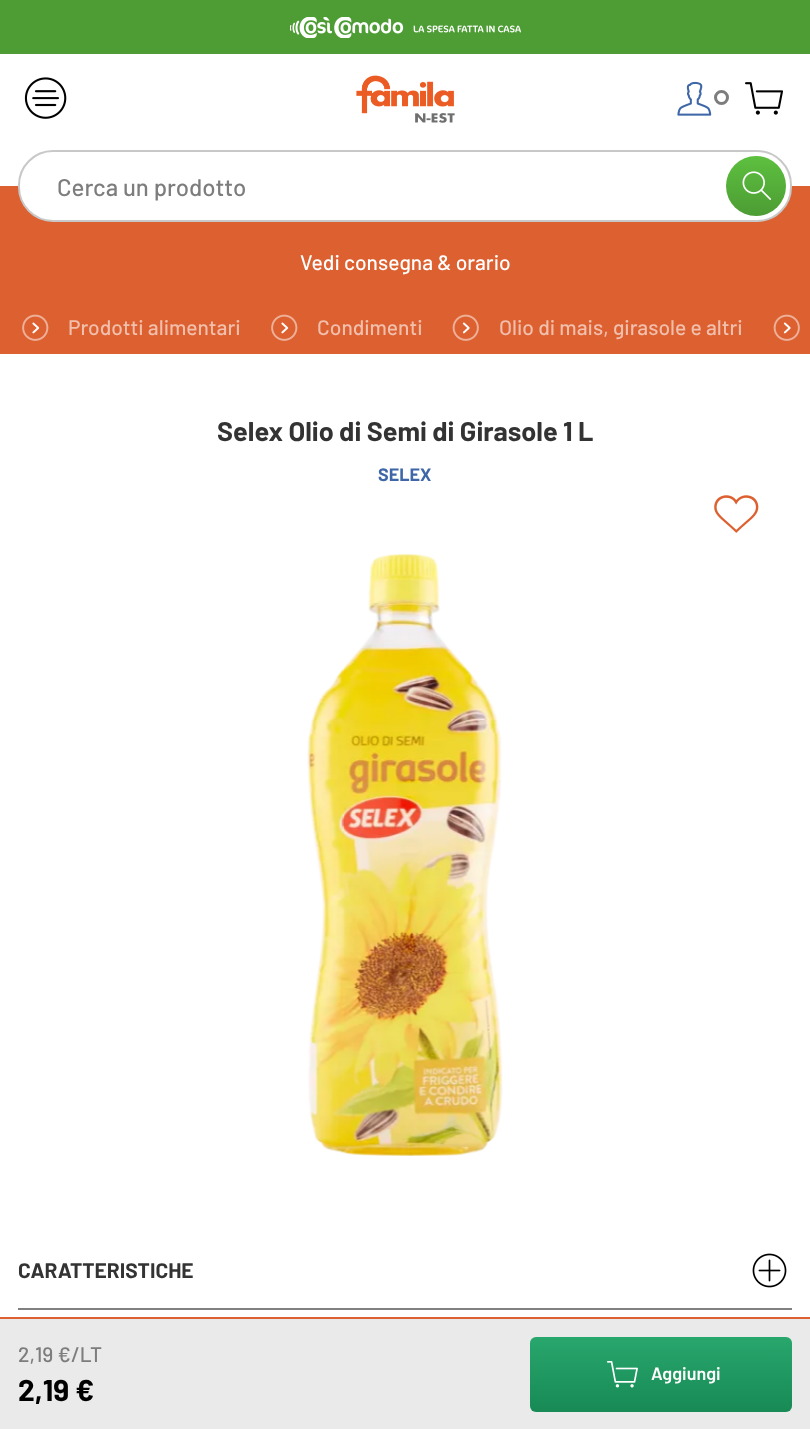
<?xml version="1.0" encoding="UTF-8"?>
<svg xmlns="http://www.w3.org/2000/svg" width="810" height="1429">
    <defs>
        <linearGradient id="g1" gradientUnits="userSpaceOnUse" x1="756" y1="156" x2="756" y2="216"><stop offset="0" stop-color="#5DC03F"/><stop offset="0.98" stop-color="#4D9D34"/></linearGradient>
        <linearGradient id="g2" gradientUnits="userSpaceOnUse" x1="661" y1="1337" x2="661" y2="1412"><stop offset="0" stop-color="#28A76D"/><stop offset="0.98" stop-color="#188A55"/></linearGradient>
    </defs>
    <rect width="100%" height="100%" fill="#FFFFFF"/>
    <rect x="0" y="0" width="810" height="54" fill="#4D9D34"/>
    <image x="290" y="17" width="231" height="21" href="img_01.png"/>
    <image x="24" y="77" width="43" height="42" href="img_02.png"/>
    <image x="356" y="75" width="99" height="48" href="img_03.png"/>
    <image x="677" y="81" width="35" height="35" href="img_04.png"/>
    <circle cx="721.5" cy="97.5" r="6" fill="none" stroke="#7D7D7D" stroke-width="3"/>
    <image x="745" y="82" width="38" height="33" href="img_05.png"/>
    <rect x="0" y="186" width="810" height="168" fill="#DC6030"/>
    <rect x="19" y="151" width="772" height="70" rx="34" fill="#FFFFFF" stroke="#C8C8C8" stroke-width="2"/>
    <text x="57" y="196" font-family="Barlow" font-size="24" font-weight="500" fill="#7D7D7D">Cerca un prodotto</text>
    <circle cx="756" cy="186" r="30" fill="url(#g1)"/>
    <image x="742" y="171" width="29" height="29" href="img_06.png"/>
    <text x="300" y="270" font-family="Barlow" font-size="21" font-weight="500" fill="#FFFFFF">Vedi consegna &amp; orario</text>
    <image x="22" y="314" width="27" height="27" href="img_07.png"/>
    <text x="68" y="335" font-family="Barlow" font-size="21" font-weight="500" fill="#F1BFAC">Prodotti alimentari</text>
    <image x="271" y="314" width="27" height="27" href="img_07.png"/>
    <text x="317" y="335" font-family="Barlow" font-size="21" font-weight="500" fill="#F1BFAC">Condimenti</text>
    <image x="452" y="314" width="27" height="27" href="img_08.png"/>
    <text x="499" y="335" font-family="Barlow" font-size="21" font-weight="500" fill="#F1BFAC">Olio di mais, girasole e altri</text>
    <image x="773" y="314" width="27" height="27" href="img_08.png"/>
    <text x="217" y="441" font-family="Barlow" font-size="27" font-weight="700" fill="#333333">Selex Olio di Semi di Girasole 1 L</text>
    <text x="378" y="481" font-family="Barlow" font-size="18" font-weight="700" fill="#3F67A7">SELEX</text>
    <image x="714" y="495" width="45" height="38" href="img_09.png"/>
    <image x="307" y="553" width="196" height="603" href="img_10.png"/>
    <rect x="18" y="1308" width="774" height="2" fill="#808080"/>
    <text x="18" y="1278" font-family="Barlow" font-size="21" font-weight="700" fill="#333333">CARATTERISTICHE</text>
    <image x="752" y="1253" width="35" height="35" href="img_11.png"/>
    <rect x="0" y="1319" width="810" height="110" fill="#EAEAEA"/>
    <rect x="0" y="1317" width="810" height="2" fill="#DC6030"/>
    <text x="18" y="1362" font-family="Barlow" font-size="21" font-weight="500" fill="#7D7D7D">2,19 €/LT</text>
    <text x="18" y="1401" font-family="Barlow" font-size="30" font-weight="700" fill="#000000">2,19 €</text>
    <rect x="530" y="1337" width="262" height="75" rx="6" fill="url(#g2)"/>
    <image x="606" y="1361" width="32" height="27" href="img_12.png"/>
    <text x="651" y="1380" font-family="Barlow" font-size="18" font-weight="600" fill="#FFFFFF">Aggiungi</text>
</svg>
